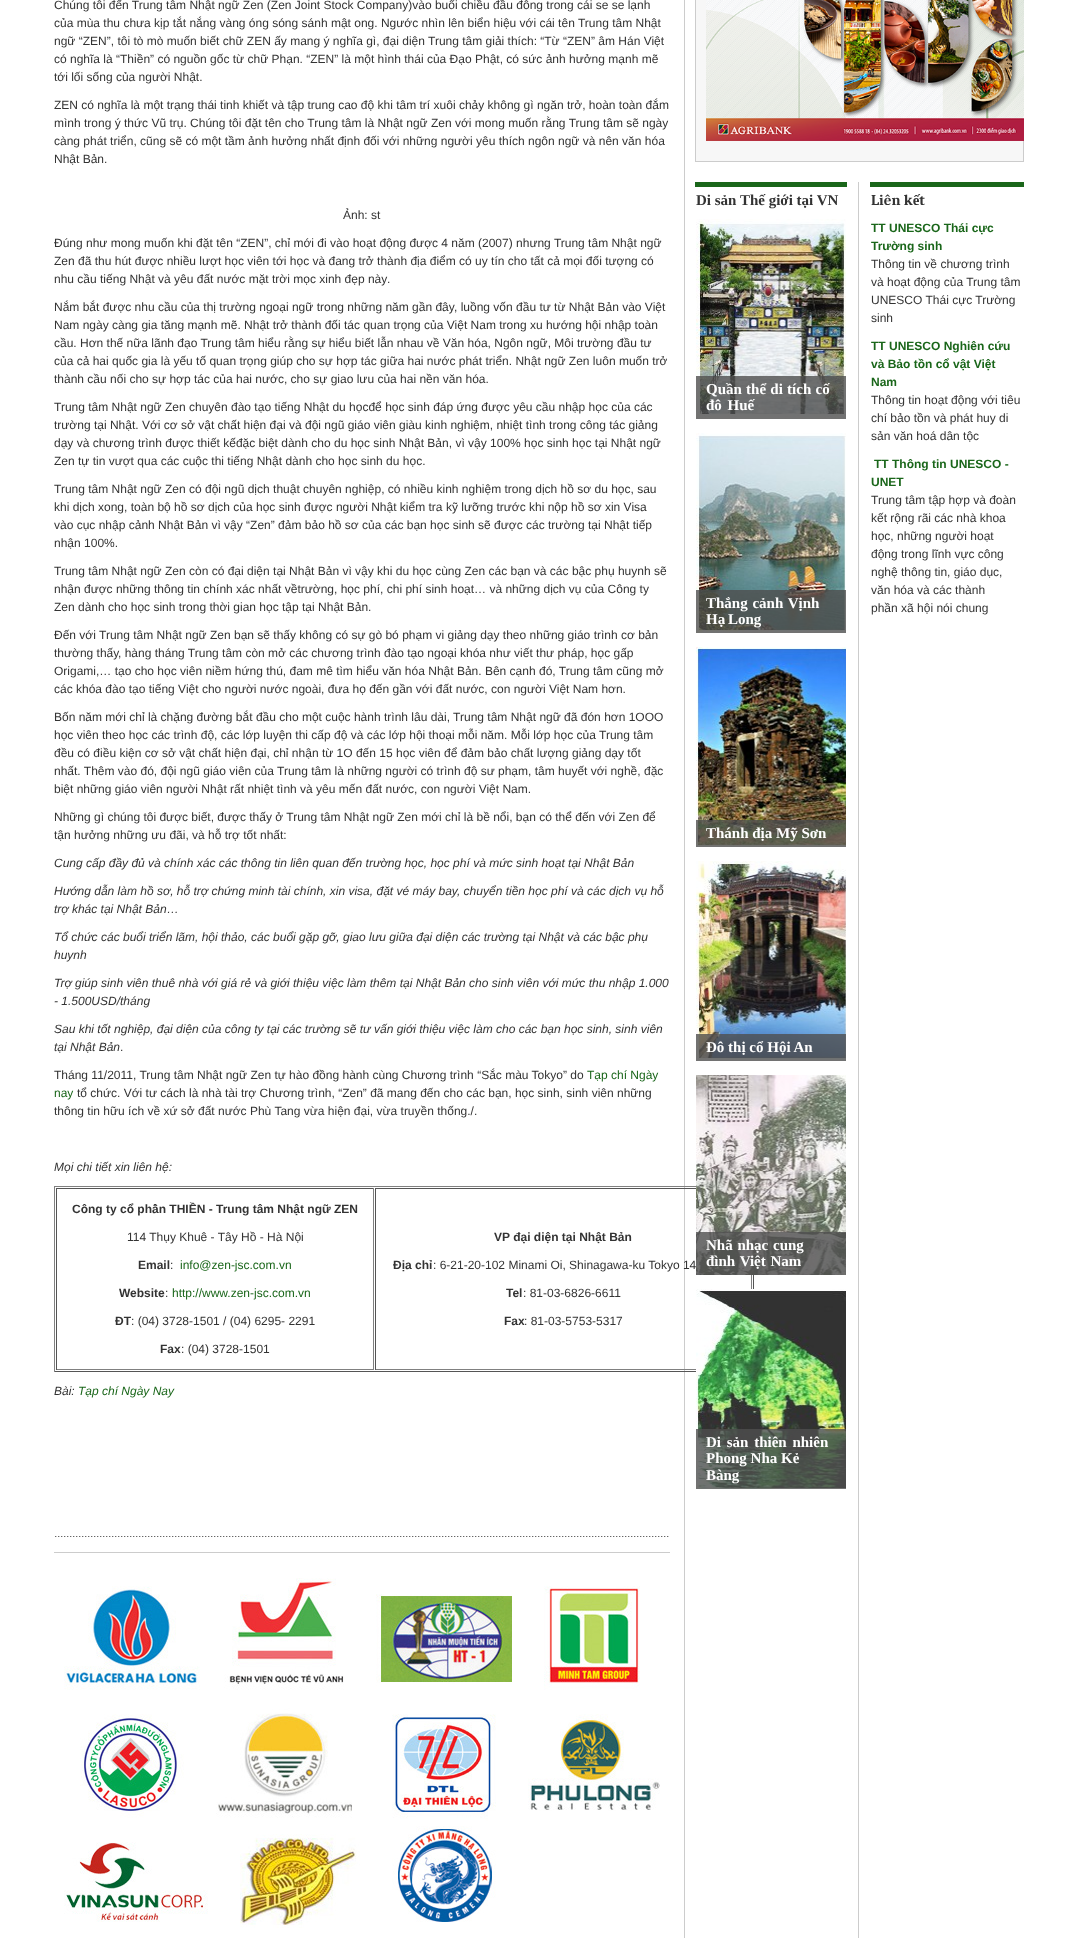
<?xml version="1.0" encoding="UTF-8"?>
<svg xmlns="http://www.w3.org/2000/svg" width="1078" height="1943">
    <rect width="100%" height="100%" fill="#FFFFFF"/>
    <rect x="684" y="0" width="1" height="1938" fill="#CCCCCC"/>
    <rect x="858" y="182" width="1" height="1756" fill="#CCCCCC"/>
    <text font-family="Liberation Sans" font-size="12" fill="#333333">
        <tspan x="54" y="9">Chúng tôi đến Trung tâm Nhật ngữ Zen (Zen Joint Stock Company)vào buổi chiều đầu đông trong cái se se lạnh</tspan>
        <tspan x="54" y="27">của mùa thu chưa kịp tắt nắng vàng óng sóng sánh mật ong. Ngước nhìn lên biển hiệu với cái tên Trung tâm Nhật</tspan>
        <tspan x="54" y="45">ngữ “ZEN”, tôi tò mò muốn biết chữ ZEN ấy mang ý nghĩa gì, đại diện Trung tâm giải thích: “Từ “ZEN” âm Hán Việt</tspan>
        <tspan x="54" y="63">có nghĩa là “Thiền” có nguồn gốc từ chữ Phạn. “ZEN” là một hình thái của Đạo Phật, có sức ảnh hưởng mạnh mẽ</tspan>
        <tspan x="54" y="81">tới lối sống của người Nhật.</tspan>
    </text>
    <text font-family="Liberation Sans" font-size="12" fill="#333333">
        <tspan x="54" y="109">ZEN có nghĩa là một trạng thái tinh khiết và tập trung cao độ khi tâm trí xuôi chảy không gì ngăn trở, hoàn toàn đắm</tspan>
        <tspan x="54" y="127">mình trong ý thức Vũ trụ. Chúng tôi đặt tên cho Trung tâm là Nhật ngữ Zen với mong muốn rằng Trung tâm sẽ ngày</tspan>
        <tspan x="54" y="145">càng phát triển, cũng sẽ có một tầm ảnh hưởng nhất định đối với những người yêu thích ngôn ngữ và nên văn hóa</tspan>
        <tspan x="54" y="163">Nhật Bản.</tspan>
    </text>
    <text x="343" y="219" font-family="Liberation Sans" font-size="12" fill="#333333">Ảnh: st</text>
    <text font-family="Liberation Sans" font-size="12" fill="#333333">
        <tspan x="54" y="247">Đúng như mong muốn khi đặt tên “ZEN”, chỉ mới đi vào hoạt động được 4 năm (2007) nhưng Trung tâm Nhật ngữ</tspan>
        <tspan x="54" y="265">Zen đã thu hút được nhiều lượt học viên tới học và đang trở thành địa điểm có uy tín cho tất cả mọi đối tượng có</tspan>
        <tspan x="54" y="283">nhu cầu tiếng Nhật và yêu đất nước mặt trời mọc xinh đẹp này</tspan>
    </text>
    <text x="387" y="283" font-family="Liberation Sans" font-size="12" fill="#333333">.</text>
    <text x="54" y="311" font-family="Liberation Sans" font-size="12" fill="#333333">Nắm bắt được nhu cầu của thị trường ngoại ngữ trong những năm gần đây</text>
    <text x="454" y="311" font-family="Liberation Sans" font-size="12" fill="#333333">, luồng vốn đầu tư từ Nhật Bản vào Việt</text>
    <text font-family="Liberation Sans" font-size="12" fill="#333333">
        <tspan x="54" y="329">Nam ngày càng gia tăng mạnh mẽ. Nhật trở thành đối tác quan trọng của Việt Nam trong xu hướng hội nhập toàn</tspan>
        <tspan x="54" y="347">cầu. Hơn thế nữa lãnh đạo Trung tâm hiểu rằng sự hiểu biết lẫn nhau về Văn hóa, Ngôn ngữ, Môi trường đầu tư</tspan>
        <tspan x="54" y="365">của cả hai quốc gia là yếu tố quan trọng giúp cho sự hợp tác giữa hai nước phát triển. Nhật ngữ Zen luôn muốn trở</tspan>
        <tspan x="54" y="383">thành cầu nối cho sự hợp tác của hai nước, cho sự giao lưu của hai nền văn hóa.</tspan>
    </text>
    <text font-family="Liberation Sans" font-size="12" fill="#333333">
        <tspan x="54" y="411">Trung tâm Nhật ngữ Zen chuyên đào tạo tiếng Nhật du họcđể học sinh đáp ứng được yêu cầu nhập học của các</tspan>
        <tspan x="54" y="429">trường tại Nhật. Với cơ sở vật chất hiện đại và đội ngũ giáo viên giàu kinh nghiệm, nhiệt tình trong công tác giảng</tspan>
        <tspan x="54" y="447">dạy và chương trình được thiết kếđặc biệt dành cho du học sinh Nhật Bản, vì vậy 100% học sinh học tại Nhật ngữ</tspan>
        <tspan x="54" y="465">Zen tự tin vượt qua các cuộc thi tiếng Nhật dành cho học sinh du học.</tspan>
    </text>
    <text font-family="Liberation Sans" font-size="12" fill="#333333">
        <tspan x="54" y="493">Trung tâm Nhật ngữ Zen có đội ngũ dịch thuật chuyên nghiệp, có nhiều kinh nghiệm trong dịch hồ sơ du học, sau</tspan>
        <tspan x="54" y="511">khi dịch xong, toàn bộ hồ sơ dịch của học sinh được người Nhật kiểm tra kỹ lưỡng trước khi nộp hồ sơ xin Visa</tspan>
        <tspan x="54" y="529">vào cục nhập cảnh Nhật Bản vì vậy “Zen” đảm bảo hồ sơ của các bạn học sinh sẽ được các trường tại Nhật tiếp</tspan>
        <tspan x="54" y="547">nhận 100%.</tspan>
    </text>
    <text font-family="Liberation Sans" font-size="12" fill="#333333">
        <tspan x="54" y="575">Trung tâm Nhật ngữ Zen còn có đại diện tại Nhật Bản vì vậy khi du học cùng Zen các bạn và các bậc phụ huynh sẽ</tspan>
        <tspan x="54" y="593">nhận được những thông tin chính xác nhất vềtrường, học phí, chi phí sinh hoạt… và những dịch vụ của Công ty</tspan>
        <tspan x="54" y="611">Zen dành cho học sinh trong thời gian học tập tại Nhật Bản.</tspan>
    </text>
    <text font-family="Liberation Sans" font-size="12" fill="#333333">
        <tspan x="54" y="639">Đến với Trung tâm Nhật ngữ Zen bạn sẽ thấy không có sự gò bó phạm vi giảng dạy theo những giáo trình cơ bản</tspan>
        <tspan x="54" y="657">thường thấy</tspan>
    </text>
    <text x="118" y="657" font-family="Liberation Sans" font-size="12" fill="#333333">, hàng tháng Trung tâm còn mở các chương trình đào tạo ngoại khóa như viết thư pháp, học gấp</text>
    <text font-family="Liberation Sans" font-size="12" fill="#333333">
        <tspan x="54" y="675">Origami,… tạo cho học viên niềm hứng thú, đam mê tìm hiểu văn hóa Nhật Bản. Bên cạnh đó, Trung tâm cũng mở</tspan>
        <tspan x="54" y="693">các khóa đào tạo tiếng Việt cho người nước ngoài, đưa họ đến gần với đất nước, con người Việt Nam hơn.</tspan>
    </text>
    <text font-family="Liberation Sans" font-size="12" fill="#333333">
        <tspan x="54" y="721">Bốn năm mới chỉ là chặng đường bắt đầu cho một cuộc hành trình lâu dài, Trung tâm Nhật ngữ đã đón hơn 1OOO</tspan>
        <tspan x="54" y="739">học viên theo học các trình độ, các lớp luyện thi cấp độ và các lớp hội thoại mỗi năm. Mỗi lớp học của Trung tâm</tspan>
        <tspan x="54" y="757">đều có điều kiện cơ sở vật chất hiện đại, chỉ nhận từ 1O đến 15 học viên để đảm bảo chất lượng giảng dạy tốt</tspan>
        <tspan x="54" y="775">nhất. Thêm vào đó, đội ngũ giáo viên của Trung tâm là những người có trình độ sư phạm, tâm huyết với nghề, đặc</tspan>
        <tspan x="54" y="793">biệt những giáo viên người Nhật rất nhiệt tình và yêu mến đất nước, con người Việt Nam.</tspan>
    </text>
    <text font-family="Liberation Sans" font-size="12" fill="#333333">
        <tspan x="54" y="821">Những gì chúng tôi được biết, được thấy ở Trung tâm Nhật ngữ Zen mới chỉ là bề nổi, bạn có thể đến với Zen để</tspan>
        <tspan x="54" y="839">tận hưởng những ưu đãi, và hỗ trợ tốt nhất:</tspan>
    </text>
    <text x="54" y="867" font-family="Liberation Sans" font-size="12" font-style="italic" fill="#333333">Cung cấp đầy đủ và chính xác các thông tin liên quan đến trường học, học phí và mức sinh hoạt tại Nhật Bản</text>
    <text font-family="Liberation Sans" font-size="12" font-style="italic" fill="#333333">
        <tspan x="54" y="895">Hướng dẫn làm hồ sơ, hỗ trợ chứng minh tài chính, xin visa, đặt vé máy bay, chuyển tiền học phí và các dịch vụ hỗ</tspan>
        <tspan x="54" y="913">trợ khác tại Nhật Bản…</tspan>
    </text>
    <text font-family="Liberation Sans" font-size="12" font-style="italic" fill="#333333">
        <tspan x="54" y="941">Tổ chức các buổi triển lãm, hội thảo, các buổi gặp gỡ, giao lưu giữa đại diện các trường tại Nhật và các bậc phụ</tspan>
        <tspan x="54" y="959">huynh</tspan>
    </text>
    <text font-family="Liberation Sans" font-size="12" font-style="italic" fill="#333333">
        <tspan x="54" y="987">Trợ giúp sinh viên thuê nhà với giá rẻ và giới thiệu việc làm thêm tại Nhật Bản cho sinh viên với mức thu nhập 1.000</tspan>
        <tspan x="54" y="1005">- 1.500USD/tháng</tspan>
    </text>
    <text font-family="Liberation Sans" font-size="12" font-style="italic" fill="#333333">
        <tspan x="54" y="1033">Sau khi tốt nghiệp, đại diện của công ty tại các trường sẽ tư vấn giới thiệu việc làm cho các bạn học sinh, sinh viên</tspan>
        <tspan x="54" y="1051">tại Nhật Bản</tspan>
    </text>
    <text x="120" y="1051" font-family="Liberation Sans" font-size="12" fill="#333333">.</text>
    <text x="54" y="1079" font-family="Liberation Sans" font-size="12" fill="#333333">Tháng 11/2011, Trung tâm Nhật ngữ Zen tự hào đồng hành cùng Chương trình “Sắc màu Tokyo” do</text>
    <text x="587" y="1079" font-family="Liberation Sans" font-size="12" fill="#1A661A">Tạp chí Ngày</text>
    <text x="54" y="1097" font-family="Liberation Sans" font-size="12" fill="#1A661A">nay</text>
    <text x="77" y="1097" font-family="Liberation Sans" font-size="12" fill="#333333">tổ chức. Với tư cách là nhà tài trợ Chương trình, “Zen” đã mang đến cho các bạn, học sinh, sinh viên những</text>
    <text x="54" y="1115" font-family="Liberation Sans" font-size="12" fill="#333333">thông tin hữu ích về xứ sở đất nước Phù Tang vừa hiện đại, vừa truyền thống./.</text>
    <text x="54" y="1171" font-family="Liberation Sans" font-size="12" font-style="italic" fill="#333333">Mọi chi tiết xin liên hệ:</text>
    <rect x="54" y="1186" width="642" height="1" fill="#808080"/>
    <rect x="753" y="1275" width="1" height="14" fill="#555555"/>
    <rect x="54" y="1371" width="642" height="1" fill="#555555"/>
    <rect x="54" y="1186" width="1" height="186" fill="#808080"/>
    <rect x="56" y="1188" width="318" height="1" fill="#555555"/>
    <rect x="373" y="1188" width="1" height="182" fill="#808080"/>
    <rect x="56" y="1369" width="318" height="1" fill="#808080"/>
    <rect x="56" y="1188" width="1" height="182" fill="#555555"/>
    <text x="72" y="1213" font-family="Liberation Sans" font-size="12" font-weight="700" fill="#333333">Công ty cổ phần THIỀN - Trung tâm Nhật ngữ ZEN</text>
    <text x="127" y="1241" font-family="Liberation Sans" font-size="12" fill="#333333">114 Thụy Khuê - Tây Hồ - Hà Nội</text>
    <text x="138" y="1269" font-family="Liberation Sans" font-size="12" font-weight="700" fill="#333333">Email</text>
    <text x="170" y="1269" font-family="Liberation Sans" font-size="12" fill="#333333">:</text>
    <text x="180" y="1269" font-family="Liberation Sans" font-size="12" fill="#1A661A">info@zen-jsc.com.vn</text>
    <text x="119" y="1297" font-family="Liberation Sans" font-size="12" font-weight="700" fill="#333333">Website</text>
    <text x="165" y="1297" font-family="Liberation Sans" font-size="12" fill="#333333">:</text>
    <text x="172" y="1297" font-family="Liberation Sans" font-size="12" fill="#1A661A">http://www.zen-jsc.com.vn</text>
    <text x="115" y="1325" font-family="Liberation Sans" font-size="12" font-weight="700" fill="#333333">ĐT</text>
    <text x="131" y="1325" font-family="Liberation Sans" font-size="12" fill="#333333">: (04) 3728-1501 / (04) 6295- 2291</text>
    <text x="160" y="1353" font-family="Liberation Sans" font-size="12" font-weight="700" fill="#333333">Fax</text>
    <text x="181" y="1353" font-family="Liberation Sans" font-size="12" fill="#333333">: (04) 3728-1501</text>
    <rect x="375" y="1188" width="321" height="1" fill="#555555"/>
    <rect x="751" y="1275" width="1" height="14" fill="#808080"/>
    <rect x="375" y="1369" width="321" height="1" fill="#808080"/>
    <rect x="375" y="1188" width="1" height="182" fill="#555555"/>
    <text x="494" y="1241" font-family="Liberation Sans" font-size="12" font-weight="700" fill="#333333">VP đại diện tại Nhật Bản</text>
    <text x="393" y="1269" font-family="Liberation Sans" font-size="12" font-weight="700" fill="#333333">Địa chỉ</text>
    <text x="433" y="1269" font-family="Liberation Sans" font-size="12" fill="#333333">: 6-21-20-102 Minami Oi, Shinagawa-ku Tokyo 14</text>
    <text x="506" y="1297" font-family="Liberation Sans" font-size="12" font-weight="700" fill="#333333">Tel</text>
    <text x="523" y="1297" font-family="Liberation Sans" font-size="12" fill="#333333">: 81-03-6826-6611</text>
    <text x="504" y="1325" font-family="Liberation Sans" font-size="12" font-weight="700" fill="#333333">Fax</text>
    <text x="524" y="1325" font-family="Liberation Sans" font-size="12" fill="#333333">: 81-03-5753-5317</text>
    <text x="54" y="1395" font-family="Liberation Sans" font-size="12" font-style="italic" fill="#333333">Bài:</text>
    <text x="78" y="1395" font-family="Liberation Sans" font-size="12" font-style="italic" fill="#1A661A">Tạp chí Ngày Nay</text>
    <image x="55" y="1536" width="614" height="1" href="img_01.png"/>
    <rect x="54" y="1552" width="616" height="1" fill="#CCCCCC"/>
    <image x="64" y="1578" width="596" height="350" href="img_02.png"/>
    <rect x="695.5" y="-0.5" width="328" height="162" fill="#F7F7F7" stroke="#CCCCCC"/>
    <image x="706" y="0" width="318" height="141" href="img_03.png"/>
    <rect x="695" y="182" width="152" height="5" fill="#1A661A"/>
    <text x="696" y="205" font-family="Liberation Serif" font-size="15" font-weight="700" fill="#333333">Di sản Thế giới tại VN</text>
    <image x="696" y="219" width="150" height="200" href="img_04.png"/>
    <rect x="696" y="376" width="150" height="43" fill="#4F4F4F" fill-opacity="0.8"/>
    <text font-family="Liberation Serif" font-size="15" font-weight="700" fill="#FFFFFF">
        <tspan x="706" y="394" word-spacing="0.5">Quần thể di tích cố</tspan>
        <tspan x="706" y="410" word-spacing="2">đô Huế</tspan>
    </text>
    <image x="696" y="433" width="150" height="200" href="img_05.png"/>
    <rect x="696" y="590" width="150" height="43" fill="#4F4F4F" fill-opacity="0.8"/>
    <text font-family="Liberation Serif" font-size="15" font-weight="700" fill="#FFFFFF">
        <tspan x="706" y="608" word-spacing="1">Thắng cảnh Vịnh</tspan>
        <tspan x="706" y="624" word-spacing="-1">Hạ Long</tspan>
    </text>
    <image x="696" y="647" width="150" height="200" href="img_06.png"/>
    <rect x="696" y="820" width="150" height="27" fill="#4F4F4F" fill-opacity="0.8"/>
    <text x="706" y="838" font-family="Liberation Serif" font-size="15" font-weight="700" fill="#FFFFFF">Thánh địa Mỹ Sơn</text>
    <image x="696" y="861" width="150" height="200" href="img_07.png"/>
    <rect x="696" y="1034" width="150" height="27" fill="#4F4F4F" fill-opacity="0.8"/>
    <text x="706" y="1052" font-family="Liberation Serif" font-size="15" font-weight="700" fill="#FFFFFF">Đô thị cổ Hội An</text>
    <image x="696" y="1075" width="150" height="200" href="img_08.png"/>
    <rect x="696" y="1232" width="150" height="43" fill="#4F4F4F" fill-opacity="0.8"/>
    <text font-family="Liberation Serif" font-size="15" font-weight="700" fill="#FFFFFF">
        <tspan x="706" y="1250" word-spacing="1">Nhã nhạc cung</tspan>
        <tspan x="706" y="1266" word-spacing="1">đình Việt Nam</tspan>
    </text>
    <image x="696" y="1289" width="150" height="200" href="img_09.png"/>
    <rect x="696" y="1429" width="150" height="60" fill="#4F4F4F" fill-opacity="0.8"/>
    <text font-family="Liberation Serif" font-size="15" font-weight="700" fill="#FFFFFF">
        <tspan x="706" y="1447" word-spacing="2">Di sản thiên nhiên</tspan>
        <tspan x="706" y="1463">Phong Nha Kẻ</tspan>
        <tspan x="706" y="1480">Bàng</tspan>
    </text>
    <rect x="870" y="182" width="154" height="5" fill="#1A661A"/>
    <text x="871" y="205" font-family="Caladea" font-size="15" font-weight="700" fill="#333333">Liên kết</text>
    <text font-family="Liberation Sans" font-size="12" font-weight="700" fill="#1A661A">
        <tspan x="871" y="232">TT UNESCO Thái cực</tspan>
        <tspan x="871" y="250">Trường sinh</tspan>
    </text>
    <text font-family="Liberation Sans" font-size="12" fill="#333333">
        <tspan x="871" y="268">Thông tin về chương trình</tspan>
        <tspan x="871" y="286">và hoạt động của Trung tâm</tspan>
        <tspan x="871" y="304">UNESCO Thái cực Trường</tspan>
        <tspan x="871" y="322">sinh</tspan>
    </text>
    <text font-family="Liberation Sans" font-size="12" font-weight="700" fill="#1A661A">
        <tspan x="871" y="350">TT UNESCO Nghiên cứu</tspan>
        <tspan x="871" y="368">và Bảo tồn cổ vật Việt</tspan>
        <tspan x="871" y="386">Nam</tspan>
    </text>
    <text font-family="Liberation Sans" font-size="12" fill="#333333">
        <tspan x="871" y="404">Thông tin hoạt động với tiêu</tspan>
        <tspan x="871" y="422">chí bảo tồn và phát huy di</tspan>
        <tspan x="871" y="440">sản văn hoá dân tộc</tspan>
    </text>
    <text x="874" y="468" font-family="Liberation Sans" font-size="12" font-weight="700" fill="#1A661A">TT Thông tin UNESCO -</text>
    <text x="871" y="486" font-family="Liberation Sans" font-size="12" font-weight="700" fill="#1A661A">UNET</text>
    <text font-family="Liberation Sans" font-size="12" fill="#333333">
        <tspan x="871" y="504">Trung tâm tập hợp và đoàn</tspan>
        <tspan x="871" y="522">kết rộng rãi các nhà khoa</tspan>
        <tspan x="871" y="540">học, những người hoạt</tspan>
        <tspan x="871" y="558">động trong lĩnh vực công</tspan>
        <tspan x="871" y="576">nghệ thông tin, giáo dục,</tspan>
        <tspan x="871" y="594">văn hóa và các thành</tspan>
        <tspan x="871" y="612">phần xã hội nói chung</tspan>
    </text>
</svg>
